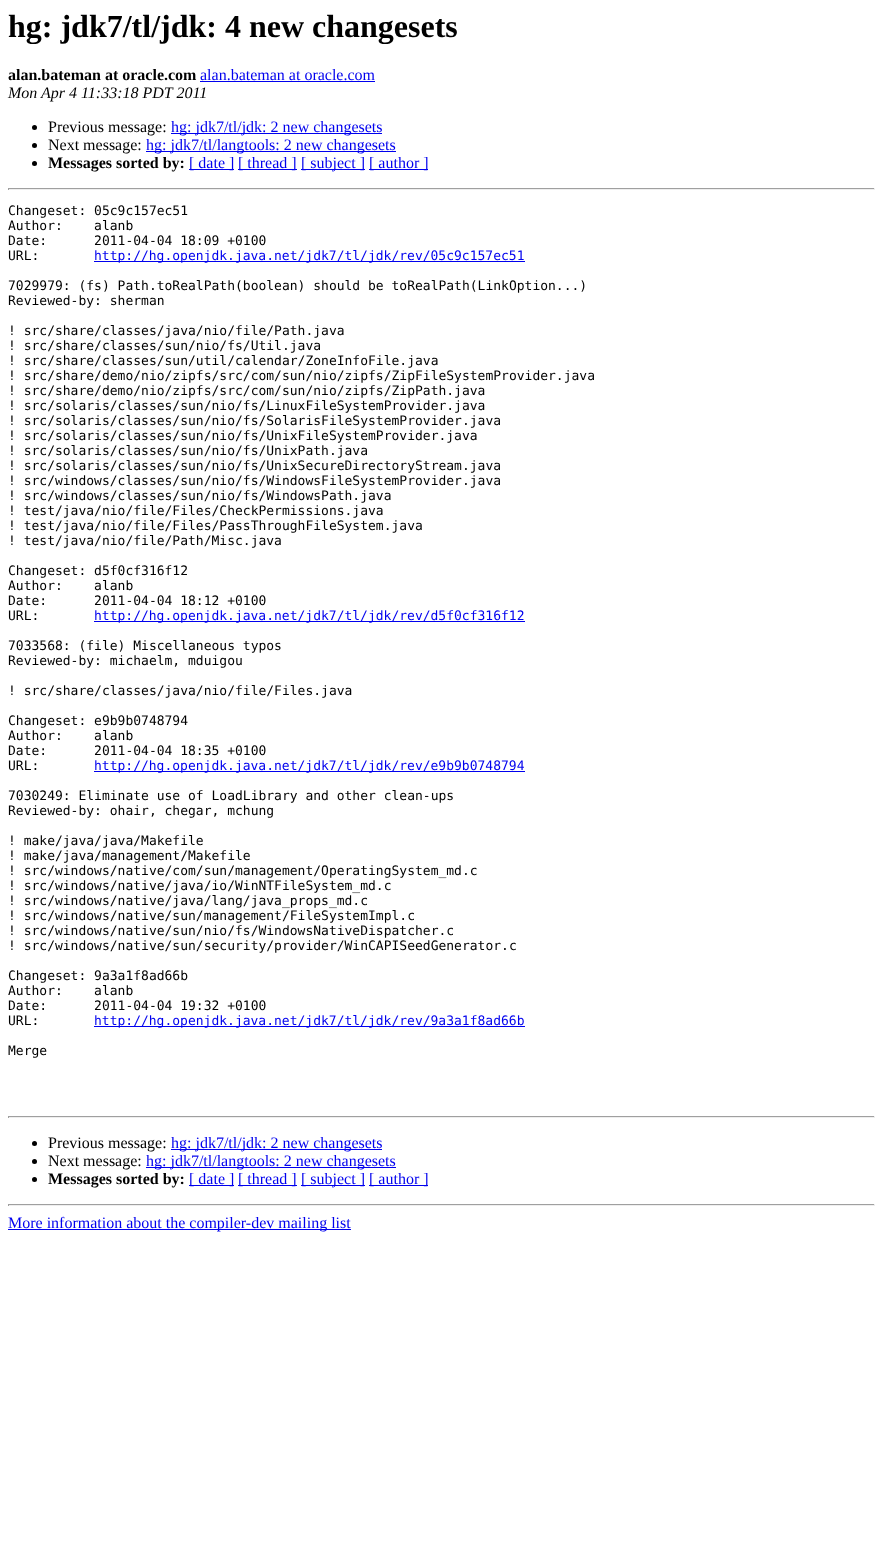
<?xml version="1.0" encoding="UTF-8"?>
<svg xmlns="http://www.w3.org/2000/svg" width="883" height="1544">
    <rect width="100%" height="100%" fill="#FFFFFF"/>
    <text x="8" y="37" font-family="Liberation Serif" font-size="32" font-weight="700" fill="#000000">hg: jdk7/tl/jdk: 4 new changesets</text>
    <text x="8" y="80" font-family="Liberation Serif" font-size="16" font-weight="700" fill="#000000">alan.bateman at oracle.com</text>
    <text x="200" y="80" font-family="Liberation Serif" font-size="16" fill="#0000EE">alan.bateman at oracle.com</text>
    <rect x="200" y="81" width="175" height="1" fill="#0000EE"/>
    <text x="8" y="98" font-family="Liberation Serif" font-size="16" font-style="italic" fill="#000000">Mon Apr 4 11:33:18 PDT 2011</text>
    <circle cx="34.5" cy="127.5" r="2.5" fill="#000000"/>
    <text x="48" y="132" font-family="Liberation Serif" font-size="16" fill="#000000">Previous message:</text>
    <rect x="171" y="133" width="211" height="1" fill="#0000EE"/>
    <text x="171" y="132" font-family="Liberation Serif" font-size="16" fill="#0000EE">hg: jdk7/tl/jdk: 2 new changesets</text>
    <circle cx="34.5" cy="145.5" r="2.5" fill="#000000"/>
    <text x="48" y="150" font-family="Liberation Serif" font-size="16" fill="#000000">Next message:</text>
    <rect x="146" y="151" width="250" height="1" fill="#0000EE"/>
    <text x="146" y="150" font-family="Liberation Serif" font-size="16" fill="#0000EE">hg: jdk7/tl/langtools: 2 new changesets</text>
    <circle cx="34.5" cy="163.5" r="2.5" fill="#000000"/>
    <text x="48" y="168" font-family="Liberation Serif" font-size="16" font-weight="700" fill="#000000">Messages sorted by:</text>
    <rect x="189" y="169" width="45" height="1" fill="#0000EE"/>
    <text x="189" y="168" font-family="Liberation Serif" font-size="16" fill="#0000EE">[ date ]</text>
    <rect x="238" y="169" width="59" height="1" fill="#0000EE"/>
    <text x="238" y="168" font-family="Liberation Serif" font-size="16" fill="#0000EE">[ thread ]</text>
    <rect x="301" y="169" width="64" height="1" fill="#0000EE"/>
    <text x="301" y="168" font-family="Liberation Serif" font-size="16" fill="#0000EE">[ subject ]</text>
    <rect x="369" y="169" width="59" height="1" fill="#0000EE"/>
    <text x="369" y="168" font-family="Liberation Serif" font-size="16" fill="#0000EE">[ author ]</text>
    <rect x="8" y="188" width="867" height="1" fill="#9F9F9F"/>
    <rect x="874" y="188" width="1" height="2" fill="#EEEEEE"/>
    <rect x="8" y="189" width="867" height="1" fill="#EEEEEE"/>
    <rect x="8" y="188" width="1" height="2" fill="#9F9F9F"/>
    <text font-family="DejaVu Sans Mono" font-size="13" fill="#000000" xml:space="preserve"><tspan x="8" y="215">Changeset: 05c9c157ec51</tspan><tspan x="8" y="230">Author:    alanb</tspan><tspan x="8" y="245">Date:      2011-04-04 18:09 +0100</tspan><tspan x="8" y="260">URL:</tspan></text>
    <rect x="94" y="261" width="431" height="1" fill="#0000EE"/>
    <text x="94" y="260" font-family="DejaVu Sans Mono" font-size="13" fill="#0000EE">http://hg.openjdk.java.net/jdk7/tl/jdk/rev/05c9c157ec51</text>
    <text font-family="DejaVu Sans Mono" font-size="13" fill="#000000">
        <tspan x="8" y="290">7029979: (fs) Path.toRealPath(boolean) should be toRealPath(LinkOption...)</tspan>
        <tspan x="8" y="305">Reviewed-by: sherman</tspan>
    </text>
    <text font-family="DejaVu Sans Mono" font-size="13" fill="#000000">
        <tspan x="8" y="335">! src/share/classes/java/nio/file/Path.java</tspan>
        <tspan x="8" y="350">! src/share/classes/sun/nio/fs/Util.java</tspan>
        <tspan x="8" y="365">! src/share/classes/sun/util/calendar/ZoneInfoFile.java</tspan>
        <tspan x="8" y="380">! src/share/demo/nio/zipfs/src/com/sun/nio/zipfs/ZipFileSystemProvider.java</tspan>
        <tspan x="8" y="395">! src/share/demo/nio/zipfs/src/com/sun/nio/zipfs/ZipPath.java</tspan>
        <tspan x="8" y="410">! src/solaris/classes/sun/nio/fs/LinuxFileSystemProvider.java</tspan>
        <tspan x="8" y="425">! src/solaris/classes/sun/nio/fs/SolarisFileSystemProvider.java</tspan>
        <tspan x="8" y="440">! src/solaris/classes/sun/nio/fs/UnixFileSystemProvider.java</tspan>
        <tspan x="8" y="455">! src/solaris/classes/sun/nio/fs/UnixPath.java</tspan>
        <tspan x="8" y="470">! src/solaris/classes/sun/nio/fs/UnixSecureDirectoryStream.java</tspan>
        <tspan x="8" y="485">! src/windows/classes/sun/nio/fs/WindowsFileSystemProvider.java</tspan>
        <tspan x="8" y="500">! src/windows/classes/sun/nio/fs/WindowsPath.java</tspan>
        <tspan x="8" y="515">! test/java/nio/file/Files/CheckPermissions.java</tspan>
        <tspan x="8" y="530">! test/java/nio/file/Files/PassThroughFileSystem.java</tspan>
        <tspan x="8" y="545">! test/java/nio/file/Path/Misc.java</tspan>
    </text>
    <text font-family="DejaVu Sans Mono" font-size="13" fill="#000000" xml:space="preserve"><tspan x="8" y="575">Changeset: d5f0cf316f12</tspan><tspan x="8" y="590">Author:    alanb</tspan><tspan x="8" y="605">Date:      2011-04-04 18:12 +0100</tspan><tspan x="8" y="620">URL:</tspan></text>
    <rect x="94" y="621" width="431" height="1" fill="#0000EE"/>
    <text x="94" y="620" font-family="DejaVu Sans Mono" font-size="13" fill="#0000EE">http://hg.openjdk.java.net/jdk7/tl/jdk/rev/d5f0cf316f12</text>
    <text font-family="DejaVu Sans Mono" font-size="13" fill="#000000">
        <tspan x="8" y="650">7033568: (file) Miscellaneous typos</tspan>
        <tspan x="8" y="665">Reviewed-by: michaelm, mduigou</tspan>
    </text>
    <text x="8" y="695" font-family="DejaVu Sans Mono" font-size="13" fill="#000000">! src/share/classes/java/nio/file/Files.java</text>
    <text font-family="DejaVu Sans Mono" font-size="13" fill="#000000" xml:space="preserve"><tspan x="8" y="725">Changeset: e9b9b0748794</tspan><tspan x="8" y="740">Author:    alanb</tspan><tspan x="8" y="755">Date:      2011-04-04 18:35 +0100</tspan><tspan x="8" y="770">URL:</tspan></text>
    <rect x="94" y="771" width="431" height="1" fill="#0000EE"/>
    <text x="94" y="770" font-family="DejaVu Sans Mono" font-size="13" fill="#0000EE">http://hg.openjdk.java.net/jdk7/tl/jdk/rev/e9b9b0748794</text>
    <text font-family="DejaVu Sans Mono" font-size="13" fill="#000000">
        <tspan x="8" y="800">7030249: Eliminate use of LoadLibrary and other clean-ups</tspan>
        <tspan x="8" y="815">Reviewed-by: ohair, chegar, mchung</tspan>
    </text>
    <text font-family="DejaVu Sans Mono" font-size="13" fill="#000000">
        <tspan x="8" y="845">! make/java/java/Makefile</tspan>
        <tspan x="8" y="860">! make/java/management/Makefile</tspan>
        <tspan x="8" y="875">! src/windows/native/com/sun/management/OperatingSystem_md.c</tspan>
        <tspan x="8" y="890">! src/windows/native/java/io/WinNTFileSystem_md.c</tspan>
        <tspan x="8" y="905">! src/windows/native/java/lang/java_props_md.c</tspan>
        <tspan x="8" y="920">! src/windows/native/sun/management/FileSystemImpl.c</tspan>
        <tspan x="8" y="935">! src/windows/native/sun/nio/fs/WindowsNativeDispatcher.c</tspan>
        <tspan x="8" y="950">! src/windows/native/sun/security/provider/WinCAPISeedGenerator.c</tspan>
    </text>
    <text font-family="DejaVu Sans Mono" font-size="13" fill="#000000" xml:space="preserve"><tspan x="8" y="980">Changeset: 9a3a1f8ad66b</tspan><tspan x="8" y="995">Author:    alanb</tspan><tspan x="8" y="1010">Date:      2011-04-04 19:32 +0100</tspan><tspan x="8" y="1025">URL:</tspan></text>
    <rect x="94" y="1026" width="431" height="1" fill="#0000EE"/>
    <text x="94" y="1025" font-family="DejaVu Sans Mono" font-size="13" fill="#0000EE">http://hg.openjdk.java.net/jdk7/tl/jdk/rev/9a3a1f8ad66b</text>
    <text x="8" y="1055" font-family="DejaVu Sans Mono" font-size="13" fill="#000000">Merge</text>
    <rect x="8" y="1116" width="867" height="1" fill="#9F9F9F"/>
    <rect x="874" y="1116" width="1" height="2" fill="#EEEEEE"/>
    <rect x="8" y="1117" width="867" height="1" fill="#EEEEEE"/>
    <rect x="8" y="1116" width="1" height="2" fill="#9F9F9F"/>
    <circle cx="34.5" cy="1143.5" r="2.5" fill="#000000"/>
    <text x="48" y="1148" font-family="Liberation Serif" font-size="16" fill="#000000">Previous message:</text>
    <rect x="171" y="1149" width="211" height="1" fill="#0000EE"/>
    <text x="171" y="1148" font-family="Liberation Serif" font-size="16" fill="#0000EE">hg: jdk7/tl/jdk: 2 new changesets</text>
    <circle cx="34.5" cy="1161.5" r="2.5" fill="#000000"/>
    <text x="48" y="1166" font-family="Liberation Serif" font-size="16" fill="#000000">Next message:</text>
    <rect x="146" y="1167" width="250" height="1" fill="#0000EE"/>
    <text x="146" y="1166" font-family="Liberation Serif" font-size="16" fill="#0000EE">hg: jdk7/tl/langtools: 2 new changesets</text>
    <circle cx="34.5" cy="1179.5" r="2.5" fill="#000000"/>
    <text x="48" y="1184" font-family="Liberation Serif" font-size="16" font-weight="700" fill="#000000">Messages sorted by:</text>
    <rect x="189" y="1185" width="45" height="1" fill="#0000EE"/>
    <text x="189" y="1184" font-family="Liberation Serif" font-size="16" fill="#0000EE">[ date ]</text>
    <rect x="238" y="1185" width="59" height="1" fill="#0000EE"/>
    <text x="238" y="1184" font-family="Liberation Serif" font-size="16" fill="#0000EE">[ thread ]</text>
    <rect x="301" y="1185" width="64" height="1" fill="#0000EE"/>
    <text x="301" y="1184" font-family="Liberation Serif" font-size="16" fill="#0000EE">[ subject ]</text>
    <rect x="369" y="1185" width="59" height="1" fill="#0000EE"/>
    <text x="369" y="1184" font-family="Liberation Serif" font-size="16" fill="#0000EE">[ author ]</text>
    <rect x="8" y="1204" width="867" height="1" fill="#9F9F9F"/>
    <rect x="874" y="1204" width="1" height="2" fill="#EEEEEE"/>
    <rect x="8" y="1205" width="867" height="1" fill="#EEEEEE"/>
    <rect x="8" y="1204" width="1" height="2" fill="#9F9F9F"/>
    <rect x="8" y="1229" width="343" height="1" fill="#0000EE"/>
    <text x="8" y="1228" font-family="Liberation Serif" font-size="16" fill="#0000EE">More information about the compiler-dev mailing list</text>
</svg>
